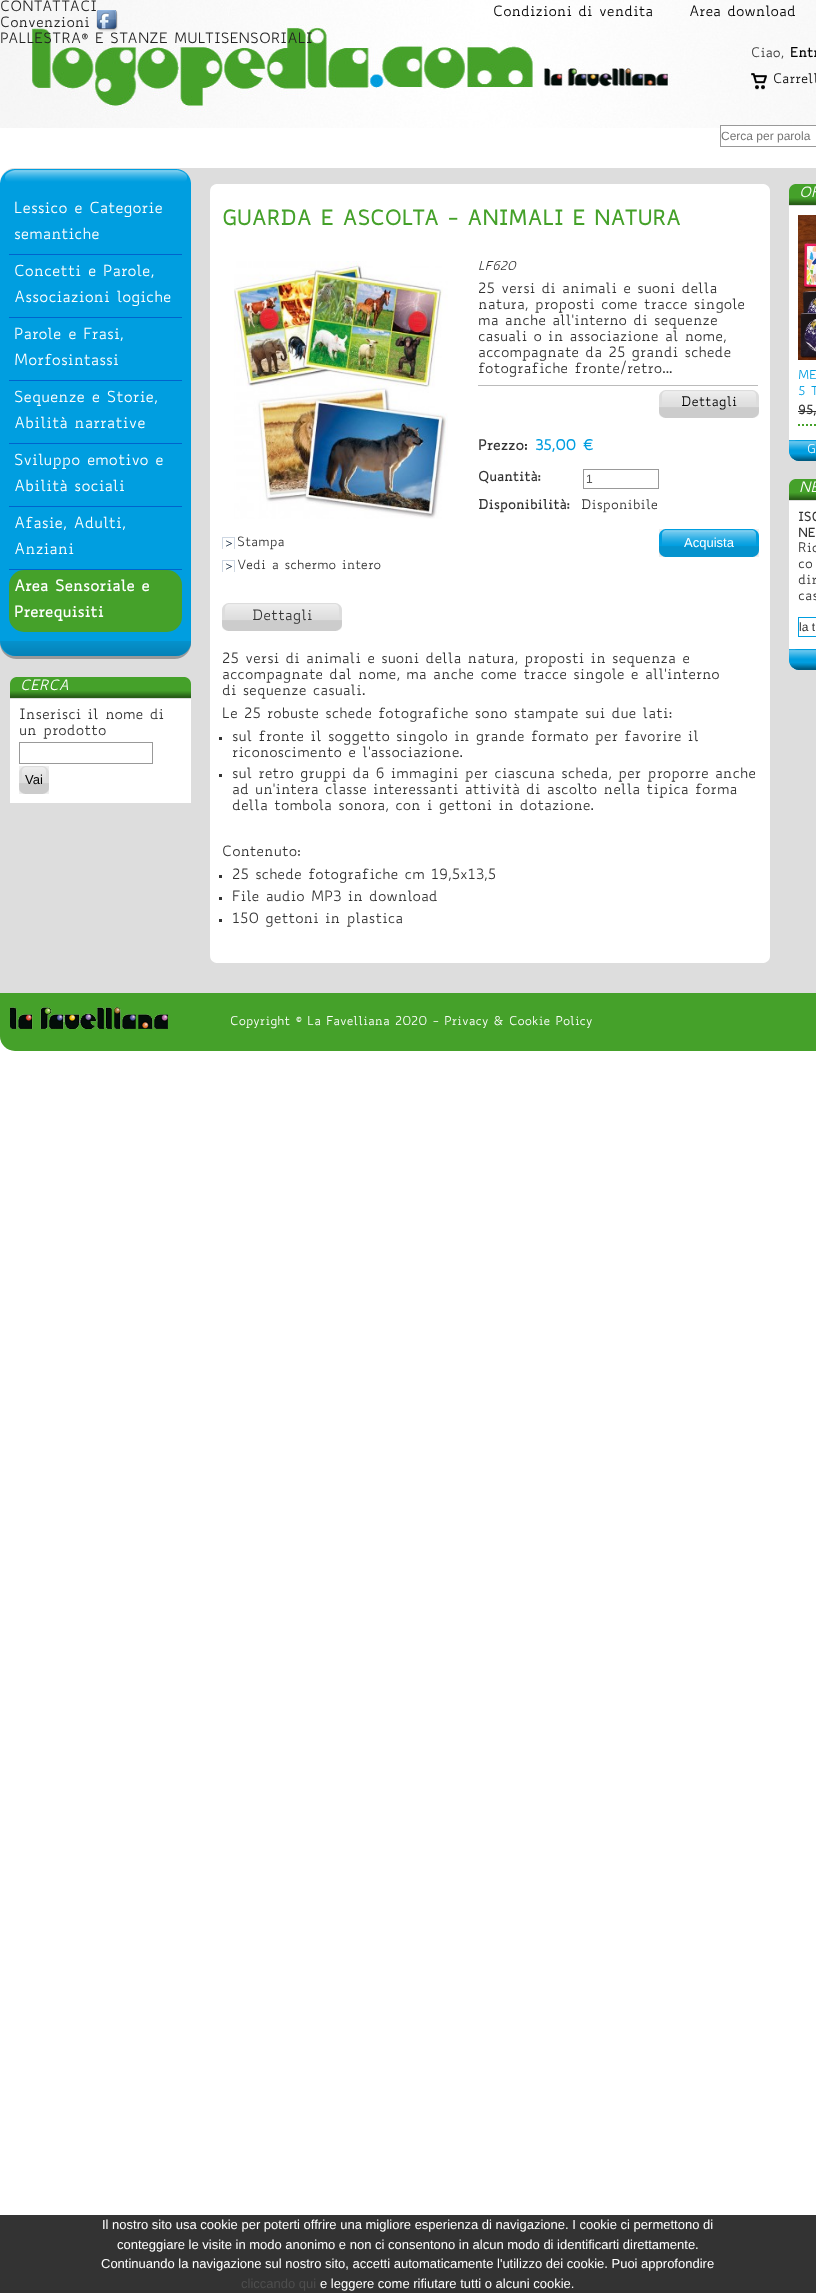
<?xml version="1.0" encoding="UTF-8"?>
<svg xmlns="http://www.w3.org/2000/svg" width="816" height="2293">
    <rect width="100%" height="100%" fill="#FFFFFF"/>
    <image x="0" y="0" width="816" height="128" href="img_01.png"/>
    <text font-family="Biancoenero" font-size="14" fill="#222222">
        <tspan x="0" y="11">CONTATTACI</tspan>
        <tspan x="0" y="27">Convenzioni</tspan>
        <tspan x="0" y="43">PALLESTRA® E STANZE MULTISENSORIALI</tspan>
    </text>
    <text x="493" y="16" font-family="Biancoenero" font-size="14" fill="#000000">Condizioni di vendita</text>
    <text x="689" y="16" font-family="Biancoenero" font-size="14" fill="#000000">Area download</text>
    <image x="96" y="10" width="22" height="22" href="img_02.png"/>
    <text x="751" y="57" font-family="Biancoenero" font-size="13" fill="#333333">Ciao,</text>
    <text x="790" y="57" font-family="Biancoenero" font-size="13" font-weight="700" fill="#000000">Entr</text>
    <image x="751" y="73" width="16" height="17" href="img_03.png"/>
    <text x="773" y="83" font-family="Biancoenero" font-size="13" fill="#000000">Carrell</text>
    <rect x="721" y="126" width="95" height="2" fill="#FFFFFF"/>
    <rect x="720.5" y="125.5" width="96" height="21" fill="none" stroke="#999999"/>
    <text x="721" y="140" font-family="Liberation Sans" font-size="12" fill="#757575">Cerca per parola</text>
    <rect x="0" y="2215" width="816" height="78" fill="#333333"/>
    <text x="102" y="2229" font-family="Liberation Sans" font-size="13" fill="#FFFFFF">Il nostro sito usa cookie per poterti offrire una migliore esperienza di navigazione. I cookie ci permettono di</text>
    <text x="117" y="2249" font-family="Liberation Sans" font-size="13" fill="#FFFFFF">conteggiare le visite in modo anonimo e non ci consentono in alcun modo di identificarti direttamente.</text>
    <text x="101" y="2268" font-family="Liberation Sans" font-size="13" fill="#FFFFFF">Continuando la navigazione sul nostro sito, accetti automaticamente l'utilizzo dei cookie. Puoi approfondire</text>
    <text x="241" y="2288" font-family="Liberation Sans" font-size="13" fill="#4E4E4E">cliccando qui</text>
    <text x="320" y="2288" font-family="Liberation Sans" font-size="13" fill="#FFFFFF">e leggere come rifiutare tutti o alcuni cookie.</text>
    <rect x="0" y="168" width="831" height="883" rx="15" fill="#DDDDDD"/>
    <image x="0" y="169" width="191" height="14" href="img_04.png"/>
    <rect x="0" y="183" width="191" height="458" fill="#009EE0"/>
    <rect x="9" y="254" width="173" height="1" fill="#0064CD"/>
    <text font-family="Biancoenero" font-size="15" fill="#FFFFFF">
        <tspan x="14" y="213">Lessico e Categorie</tspan>
        <tspan x="14" y="239">semantiche</tspan>
    </text>
    <rect x="9" y="317" width="173" height="1" fill="#0064CD"/>
    <text font-family="Biancoenero" font-size="15" fill="#FFFFFF">
        <tspan x="14" y="276">Concetti e Parole,</tspan>
        <tspan x="14" y="302">Associazioni logiche</tspan>
    </text>
    <rect x="9" y="380" width="173" height="1" fill="#0064CD"/>
    <text font-family="Biancoenero" font-size="15" fill="#FFFFFF">
        <tspan x="14" y="339">Parole e Frasi,</tspan>
        <tspan x="14" y="365">Morfosintassi</tspan>
    </text>
    <rect x="9" y="443" width="173" height="1" fill="#0064CD"/>
    <text font-family="Biancoenero" font-size="15" fill="#FFFFFF">
        <tspan x="14" y="402">Sequenze e Storie,</tspan>
        <tspan x="14" y="428">Abilità narrative</tspan>
    </text>
    <rect x="9" y="506" width="173" height="1" fill="#0064CD"/>
    <text font-family="Biancoenero" font-size="15" fill="#FFFFFF">
        <tspan x="14" y="465">Sviluppo emotivo e</tspan>
        <tspan x="14" y="491">Abilità sociali</tspan>
    </text>
    <rect x="9" y="569" width="173" height="1" fill="#0064CD"/>
    <text font-family="Biancoenero" font-size="15" fill="#FFFFFF">
        <tspan x="14" y="528">Afasie, Adulti,</tspan>
        <tspan x="14" y="554">Anziani</tspan>
    </text>
    <rect x="9" y="570" width="173" height="62" rx="15" fill="#45A12A"/>
    <text font-family="Biancoenero" font-size="15" font-weight="700" fill="#FFFFFF">
        <tspan x="14" y="591">Area Sensoriale e</tspan>
        <tspan x="14" y="617">Prerequisiti</tspan>
    </text>
    <image x="0" y="641" width="191" height="18" href="img_05.png"/>
    <image x="10" y="677" width="181" height="21" href="img_06.png"/>
    <text x="20" y="690" font-family="Biancoenero" font-size="14" font-style="italic" fill="#FFFFFF">CERCA</text>
    <rect x="10" y="699" width="181" height="104" fill="#FFFFFF"/>
    <text font-family="Biancoenero" font-size="14" fill="#333333">
        <tspan x="19" y="719">Inserisci il nome di</tspan>
        <tspan x="19" y="735">un prodotto</tspan>
    </text>
    <rect x="19.5" y="742.5" width="133" height="21" fill="none" stroke="#999999"/>
    <rect x="19" y="766" width="30" height="28" fill="#EFEFEF"/>
    <image x="19" y="766" width="30" height="28" href="img_07.png"/>
    <text x="25" y="784" font-family="Liberation Sans" font-size="13" fill="#000000">Vai</text>
    <image x="210" y="184" width="560" height="8" href="img_08.png"/>
    <rect x="210" y="192" width="560" height="763" fill="#FFFFFF"/>
    <text x="222" y="225" font-family="Biancoenero" font-size="20" font-weight="700" fill="#45A12A">GUARDA E ASCOLTA - ANIMALI E NATURA</text>
    <image x="234" y="261" width="214" height="258" href="img_09.png"/>
    <image x="222" y="537" width="13" height="12" href="img_10.png"/>
    <text x="237" y="546" font-family="Biancoenero" font-size="12.6" fill="#333333">Stampa</text>
    <image x="222" y="560" width="13" height="12" href="img_10.png"/>
    <text x="237" y="569" font-family="Biancoenero" font-size="12.6" fill="#333333">Vedi a schermo intero</text>
    <text x="478" y="270" font-family="Biancoenero" font-size="12" font-style="italic" fill="#333333">LF620</text>
    <text font-family="Biancoenero" font-size="14" fill="#333333">
        <tspan x="478" y="293">25 versi di animali e suoni della</tspan>
        <tspan x="478" y="309">natura, proposti come tracce singole</tspan>
        <tspan x="478" y="325">ma anche all'interno di sequenze</tspan>
        <tspan x="478" y="341">casuali o in associazione al nome,</tspan>
        <tspan x="478" y="357">accompagnate da 25 grandi schede</tspan>
        <tspan x="478" y="373">fotografiche fronte/retro...</tspan>
    </text>
    <rect x="478" y="385" width="280" height="1" fill="#BBBBBB"/>
    <image x="659" y="390" width="100" height="28" href="img_11.png"/>
    <text x="681" y="406" font-family="Biancoenero" font-size="13" fill="#000000">Dettagli</text>
    <text x="478" y="450" font-family="Biancoenero" font-size="14" font-weight="700" fill="#333333">Prezzo:</text>
    <text x="535" y="450" font-family="Biancoenero" font-size="14" font-weight="700" fill="#009EE0">35,00 €</text>
    <text x="478" y="481" font-family="Biancoenero" font-size="13" font-weight="700" fill="#333333">Quantità:</text>
    <rect x="583.5" y="469.5" width="75" height="19" fill="none" stroke="#999999"/>
    <text x="586" y="483" font-family="Liberation Sans" font-size="12" fill="#555555">1</text>
    <text x="478" y="509" font-family="Biancoenero" font-size="13" font-weight="700" fill="#333333">Disponibilità:</text>
    <text x="581" y="509" font-family="Biancoenero" font-size="13" fill="#333333">Disponibile</text>
    <rect x="659" y="529" width="100" height="28" fill="#EFEFEF"/>
    <image x="659" y="529" width="100" height="28" href="img_12.png"/>
    <text x="684" y="547" font-family="Liberation Sans" font-size="13" fill="#FFFFFF">Acquista</text>
    <image x="222" y="603" width="120" height="28" href="img_13.png"/>
    <text x="252" y="620" font-family="Biancoenero" font-size="14" fill="#333333">Dettagli</text>
    <text font-family="Biancoenero" font-size="14" fill="#333333">
        <tspan x="222" y="663">25 versi di animali e suoni della natura, proposti in sequenza e</tspan>
        <tspan x="222" y="679">accompagnate dal nome, ma anche come tracce singole e all'interno</tspan>
        <tspan x="222" y="695">di sequenze casuali.</tspan>
        <tspan x="222" y="718">Le 25 robuste schede fotografiche sono stampate sui due lati:</tspan>
    </text>
    <rect x="219" y="737" width="3" height="3" fill="#333333"/>
    <text font-family="Biancoenero" font-size="14" fill="#333333">
        <tspan x="232" y="741">sul fronte il soggetto singolo in grande formato per favorire il</tspan>
        <tspan x="232" y="757">riconoscimento e l'associazione.</tspan>
    </text>
    <rect x="219" y="774" width="3" height="3" fill="#333333"/>
    <text font-family="Biancoenero" font-size="14" fill="#333333">
        <tspan x="232" y="778">sul retro gruppi da 6 immagini per ciascuna scheda, per proporre anche</tspan>
        <tspan x="232" y="794">ad un'intera classe interessanti attività di ascolto nella tipica forma</tspan>
        <tspan x="232" y="810">della tombola sonora, con i gettoni in dotazione.</tspan>
    </text>
    <text x="222" y="856" font-family="Biancoenero" font-size="14" fill="#333333">Contenuto:</text>
    <rect x="219" y="875" width="3" height="3" fill="#333333"/>
    <text x="232" y="879" font-family="Biancoenero" font-size="14" fill="#333333">25 schede fotografiche cm 19,5x13,5</text>
    <rect x="219" y="897" width="3" height="3" fill="#333333"/>
    <text x="232" y="901" font-family="Biancoenero" font-size="14" fill="#333333">File audio MP3 in download</text>
    <rect x="219" y="919" width="3" height="3" fill="#333333"/>
    <text x="232" y="923" font-family="Biancoenero" font-size="14" fill="#333333">150 gettoni in plastica</text>
    <image x="210" y="955" width="560" height="8" href="img_14.png"/>
    <image x="789" y="184" width="27" height="21" href="img_15.png"/>
    <text x="799" y="197" font-family="Biancoenero" font-size="14" font-style="italic" fill="#FFFFFF">OF</text>
    <rect x="789" y="206" width="27" height="234" fill="#FFFFFF"/>
    <path d="M 798 425 H 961" fill="none" stroke="#45A12A" stroke-width="2" stroke-dasharray="2 2"/>
    <image x="798" y="215" width="18" height="145" href="img_16.png"/>
    <text font-family="Biancoenero" font-size="12" fill="#009EE0">
        <tspan x="798" y="379">ME</tspan>
        <tspan x="798" y="395">5 T</tspan>
    </text>
    <text x="798" y="414" font-family="Biancoenero" font-size="12" font-weight="700" fill="#333333">95,</text>
    <rect x="798" y="411" width="18" height="1" fill="#333333"/>
    <image x="789" y="440" width="27" height="21" href="img_17.png"/>
    <text x="807" y="453" font-family="Biancoenero" font-size="12" fill="#FFFFFF">G</text>
    <image x="789" y="479" width="27" height="21" href="img_15.png"/>
    <text x="799" y="492" font-family="Biancoenero" font-size="14" font-style="italic" fill="#FFFFFF">NE</text>
    <rect x="789" y="501" width="27" height="148" fill="#FFFFFF"/>
    <text font-family="Biancoenero" font-size="12" font-weight="700" fill="#333333">
        <tspan x="798" y="521">ISC</tspan>
        <tspan x="798" y="537">NE</tspan>
    </text>
    <text font-family="Biancoenero" font-size="13" fill="#333333">
        <tspan x="798" y="552">Ric</tspan>
        <tspan x="798" y="568">co</tspan>
        <tspan x="798" y="584">dir</tspan>
        <tspan x="798" y="600">cas</tspan>
    </text>
    <rect x="798.5" y="617.5" width="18" height="19" fill="none" stroke="#009EE0"/>
    <text x="799" y="631" font-family="Liberation Sans" font-size="12" fill="#333333">la t</text>
    <image x="789" y="649" width="27" height="21" href="img_17.png"/>
    <image x="0" y="993" width="816" height="58" href="img_18.png"/>
    <image x="10" y="1007" width="158" height="22" href="img_19.png"/>
    <text x="230" y="1025" font-family="Biancoenero" font-size="12" fill="#FFFFFF">Copyright © La Favelliana 2020 - Privacy &amp; Cookie Policy</text>
</svg>
